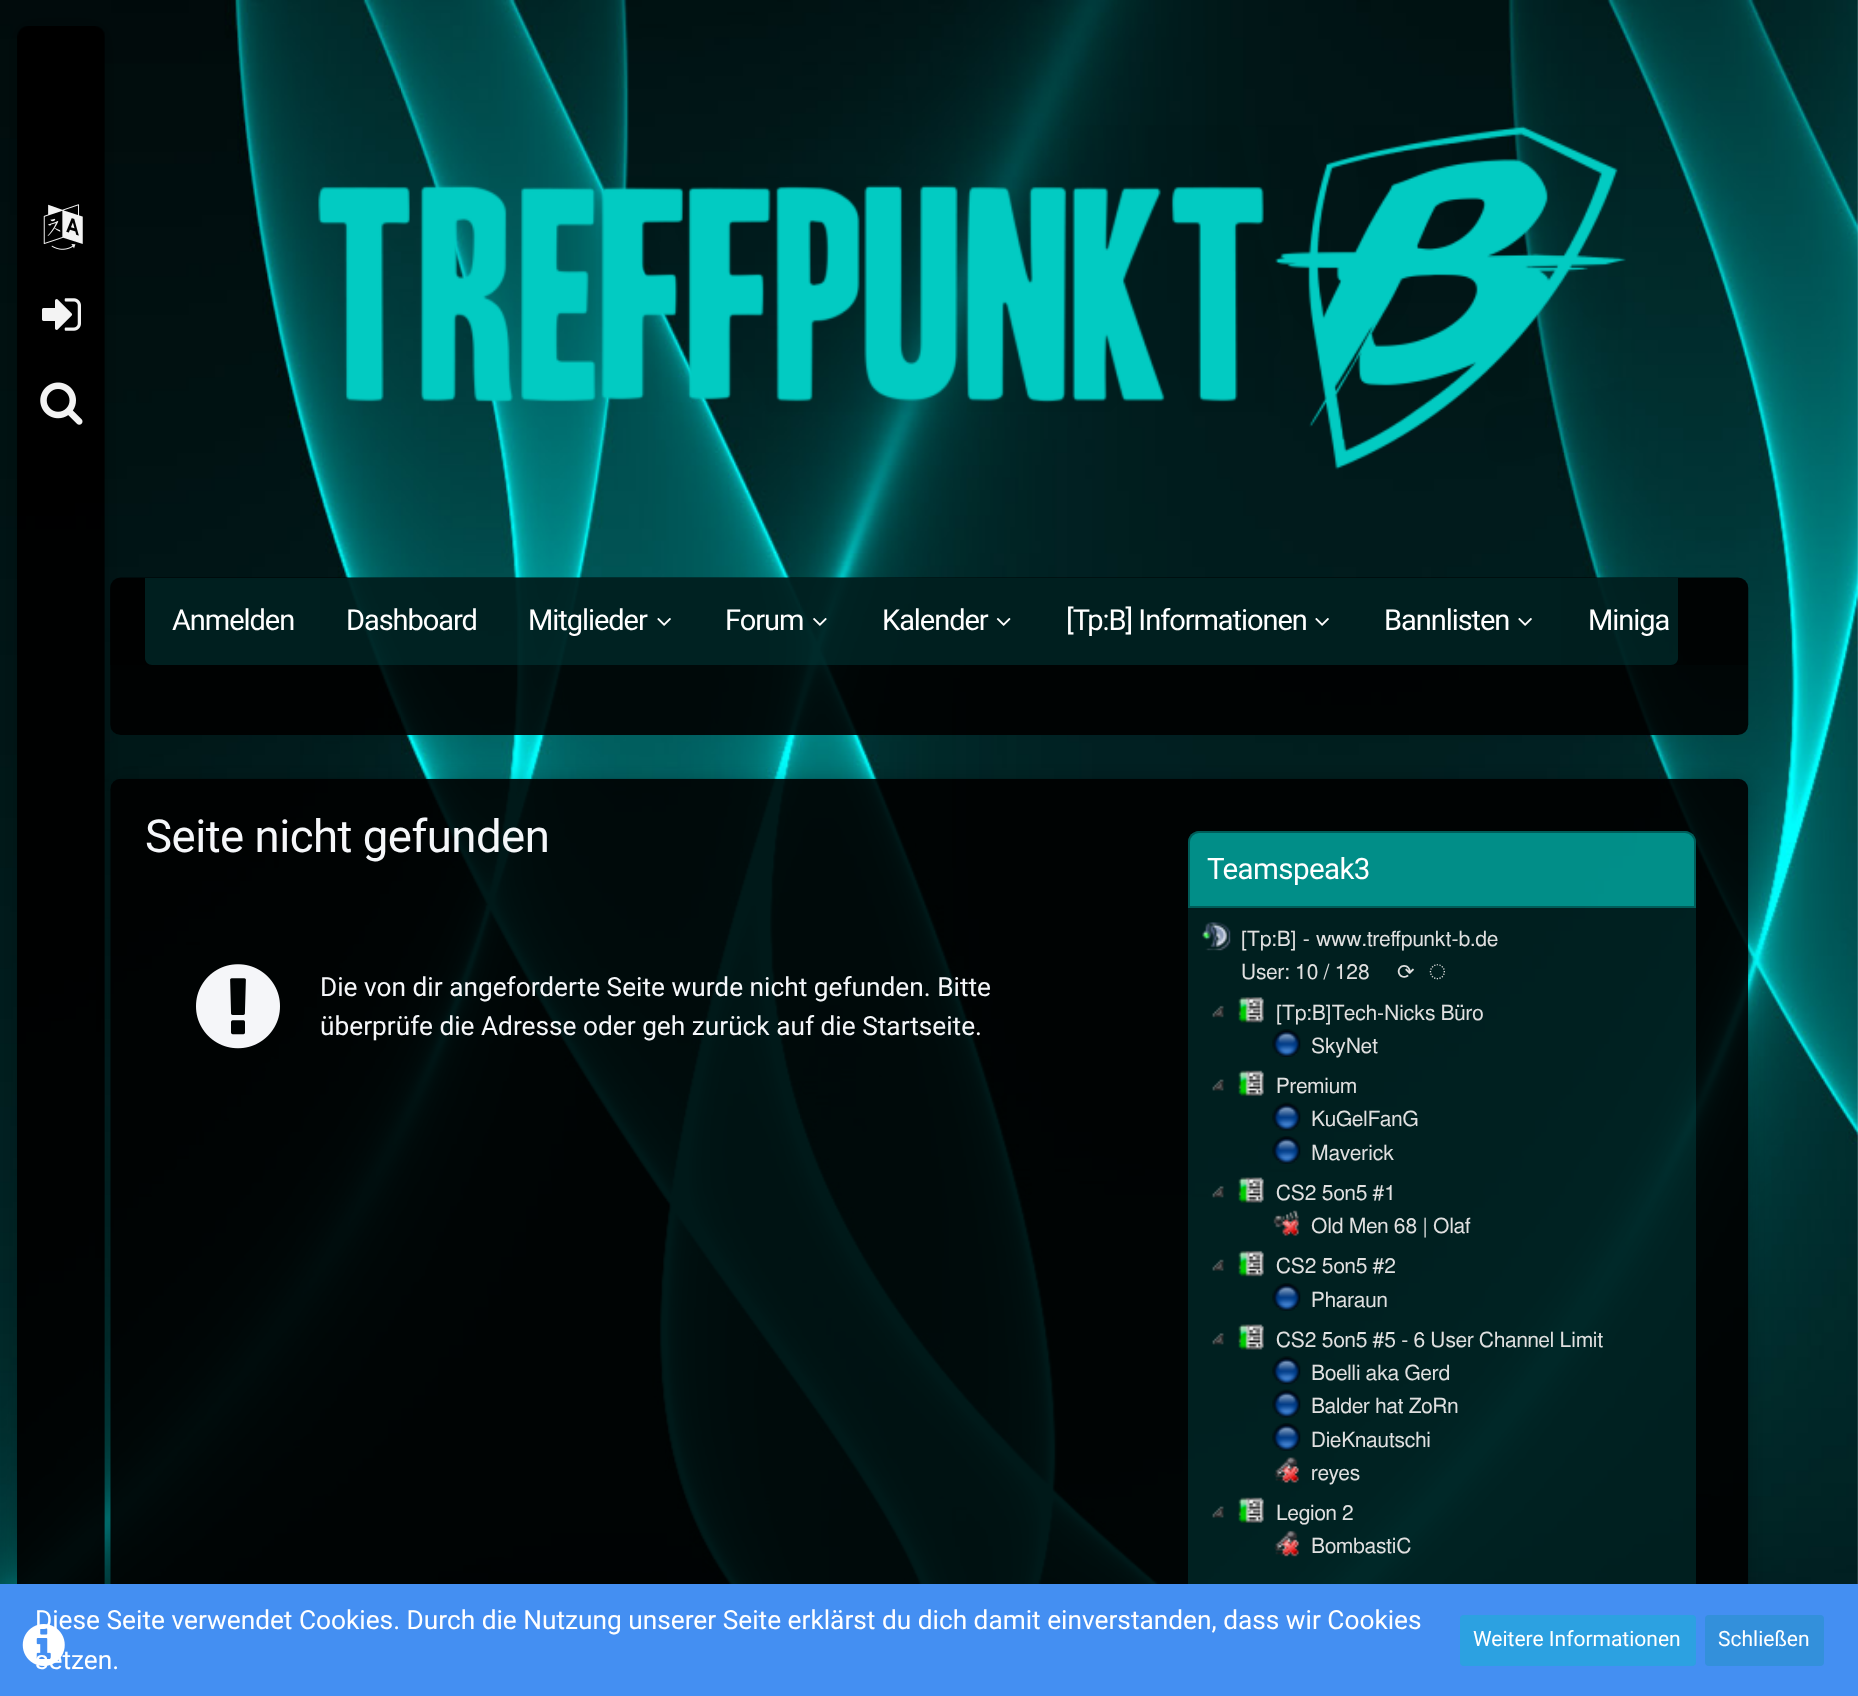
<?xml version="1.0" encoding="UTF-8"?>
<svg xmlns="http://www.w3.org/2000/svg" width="1858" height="1696">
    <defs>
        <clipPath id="clip1"><path d="M 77 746 H 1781 V 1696 H 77 Z M 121 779 H 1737 C 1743 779 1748 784 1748 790 V 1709 C 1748 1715 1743 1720 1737 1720 H 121 C 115 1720 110 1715 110 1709 V 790 C 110 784 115 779 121 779 Z" clip-rule="evenodd"/></clipPath>
        <filter id="blur1" x="-50%" y="-200%" width="200%" height="500%"><feGaussianBlur stdDeviation="10.5"/></filter>
        <clipPath id="clip2"><path d="M 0 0 H 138 V 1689 H 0 Z M 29 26 H 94 C 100 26 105 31 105 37 V 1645 C 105 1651 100 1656 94 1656 H 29 C 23 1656 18 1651 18 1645 V 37 C 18 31 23 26 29 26 Z" clip-rule="evenodd"/></clipPath>
    </defs>
    <rect width="100%" height="100%" fill="#FFFFFF"/>
    <image x="0" y="0" width="1858" height="1584" href="img_01.png"/>
    <image x="318" y="125" width="1308" height="345" href="img_02.png"/>
    <path d="M 121 578 H 1737 C 1743 578 1748 583 1748 589 V 665 H 110 V 589 C 110 583 115 578 121 578 Z" fill="#000000" fill-opacity="0.4"/>
    <image x="110" y="577" width="1639" height="88" href="img_03.png"/>
    <image x="110" y="665" width="1639" height="70" href="img_12.png"/>
    <g clip-path="url(#clip1)">
        <rect x="110" y="779" width="1638" height="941" rx="11" fill="#000000" fill-opacity="0.2" filter="url(#blur1)"/>
    </g>
    <image x="110" y="778" width="1639" height="806" href="img_13.png"/>
    <g clip-path="url(#clip2)">
        <rect x="18" y="26" width="87" height="1630" rx="11" fill="#000000" fill-opacity="0.2" filter="url(#blur1)"/>
    </g>
    <image x="17" y="26" width="88" height="1558" href="img_04.png"/>
    <rect x="18" y="26" width="87" height="1630" rx="11" fill="#000000" fill-opacity="0.08"/>
    <image x="43" y="204" width="40" height="46" href="img_05.png"/>
    <image x="42" y="298" width="39" height="33" href="img_06.png"/>
    <image x="40" y="382" width="43" height="43" href="img_07.png"/>
    <path d="M 145 578 H 320 V 665 H 152 C 148 665 145 662 145 658 Z" fill="#001F1F"/>
    <text x="172" y="630" font-family="Roboto" font-size="29" letter-spacing="-1.05" fill="#FFFFFF">Anmelden</text>
    <rect x="320" y="578" width="182" height="87" fill="#009494" fill-opacity="0.2"/>
    <text x="346" y="630" font-family="Roboto" font-size="29" letter-spacing="-1.05" fill="#FFFFFF">Dashboard</text>
    <rect x="502" y="578" width="198" height="87" fill="#009494" fill-opacity="0.2"/>
    <text x="528" y="630" font-family="Roboto" font-size="29" letter-spacing="-1.05" fill="#FFFFFF">Mitglieder</text>
    <image x="657" y="618" width="14" height="8" href="img_08.png"/>
    <rect x="700" y="578" width="156" height="87" fill="#009494" fill-opacity="0.2"/>
    <text x="725" y="630" font-family="Roboto" font-size="29" letter-spacing="-1.05" fill="#FFFFFF">Forum</text>
    <image x="813" y="618" width="14" height="8" href="img_09.png"/>
    <rect x="856" y="578" width="184" height="87" fill="#009494" fill-opacity="0.2"/>
    <text x="882" y="630" font-family="Roboto" font-size="29" letter-spacing="-1.05" fill="#FFFFFF">Kalender</text>
    <image x="996" y="618" width="15" height="8" href="img_10.png"/>
    <rect x="1040" y="578" width="521" height="87" fill="#001F1F"/>
    <text x="1066" y="630" font-family="Roboto" font-size="29" letter-spacing="-1.05" fill="#FFFFFF">[Tp:B] Informationen</text>
    <image x="1315" y="618" width="14" height="8" href="img_11.png"/>
    <text x="1384" y="630" font-family="Roboto" font-size="29" letter-spacing="-1.05" fill="#FFFFFF">Bannlisten</text>
    <image x="1518" y="618" width="14" height="8" href="img_11.png"/>
    <path d="M 1561 578 H 1678 V 658 C 1678 662 1675 665 1671 665 H 1561 Z" fill="#009494" fill-opacity="0.2"/>
    <text x="1588" y="630" font-family="Roboto" font-size="29" letter-spacing="-1.05" fill="#FFFFFF">Miniga</text>
    <text x="145" y="852" font-family="Roboto" font-size="45.5" letter-spacing="-0.5" fill="#F5F7FA">Seite nicht gefunden</text>
    <image x="196" y="964" width="84" height="85" href="img_14.png"/>
    <text font-family="Roboto" font-size="26.25" fill="#F5F7FA">
        <tspan x="320" y="996">Die von dir angeforderte Seite wurde nicht gefunden. Bitte</tspan>
        <tspan x="320" y="1035">überprüfe die Adresse oder geh zurück auf die Startseite.</tspan>
    </text>
    <path d="M 1199 831 H 1685 C 1691 831 1696 836 1696 842 V 908 H 1188 V 842 C 1188 836 1193 831 1199 831 Z" fill="#01CBC2" fill-opacity="0.7"/>
    <path d="M 1199 832 H 1685 C 1690.5 832 1695 836.5 1695 842 V 907 H 1189 V 842 C 1189 836.5 1193.5 832 1199 832 Z" fill="none" stroke="#000000" stroke-opacity="0.35" stroke-width="2"/>
    <text x="1207" y="879" font-family="Roboto" font-size="29.5" letter-spacing="-0.6" fill="#FFFFFF">Teamspeak3</text>
    <rect x="1188" y="908" width="508" height="676" fill="#00C2C2" fill-opacity="0.15"/>
    <image x="1202" y="922" width="29" height="29" href="img_15.png"/>
    <text font-family="FreeSans" font-size="21" fill="#E0E0E0">
        <tspan x="1241" y="946" word-spacing="1">[Tp:B] - www.treffpunkt-b.de</tspan>
        <tspan x="1241" y="979">User: 10 / 128</tspan>
    </text>
    <text x="1397" y="979" font-family="DejaVu Sans" font-size="21" fill="#E0E0E0">⟳</text>
    <text x="1429" y="979" font-family="FreeSans" font-size="21" fill="#E0E0E0">◌</text>
    <image x="1212" y="1005" width="12" height="13" href="img_16.png"/>
    <image x="1238" y="997" width="26" height="26" href="img_17.png"/>
    <text x="1276" y="1020" font-family="FreeSans" font-size="21" fill="#E0E0E0">[Tp:B]Tech-Nicks Büro</text>
    <image x="1272" y="1029" width="29" height="28" href="img_18.png"/>
    <text x="1311" y="1053" font-family="FreeSans" font-size="21" fill="#E0E0E0">SkyNet</text>
    <image x="1212" y="1079" width="12" height="12" href="img_19.png"/>
    <image x="1238" y="1070" width="26" height="26" href="img_20.png"/>
    <text x="1276" y="1093" font-family="FreeSans" font-size="21" fill="#E0E0E0">Premium</text>
    <image x="1272" y="1102" width="29" height="29" href="img_21.png"/>
    <text x="1311" y="1126" font-family="FreeSans" font-size="21" fill="#E0E0E0">KuGelFanG</text>
    <image x="1272" y="1136" width="29" height="28" href="img_22.png"/>
    <text x="1311" y="1160" font-family="FreeSans" font-size="21" fill="#E0E0E0">Maverick</text>
    <image x="1212" y="1186" width="12" height="12" href="img_23.png"/>
    <image x="1238" y="1177" width="26" height="26" href="img_24.png"/>
    <text x="1276" y="1200" font-family="FreeSans" font-size="21" fill="#E0E0E0">CS2 5on5 #1</text>
    <image x="1273" y="1210" width="26" height="26" href="img_25.png"/>
    <text x="1311" y="1233" font-family="FreeSans" font-size="21" fill="#E0E0E0">Old Men 68 | Olaf</text>
    <image x="1212" y="1259" width="12" height="12" href="img_26.png"/>
    <image x="1238" y="1250" width="26" height="27" href="img_27.png"/>
    <text x="1276" y="1273" font-family="FreeSans" font-size="21" fill="#E0E0E0">CS2 5on5 #2</text>
    <image x="1272" y="1283" width="29" height="28" href="img_28.png"/>
    <text x="1311" y="1307" font-family="FreeSans" font-size="21" fill="#E0E0E0">Pharaun</text>
    <image x="1212" y="1333" width="12" height="12" href="img_29.png"/>
    <image x="1238" y="1324" width="26" height="26" href="img_30.png"/>
    <text x="1276" y="1347" font-family="FreeSans" font-size="21" fill="#E0E0E0">CS2 5on5 #5 - 6 User Channel Limit</text>
    <image x="1272" y="1356" width="29" height="29" href="img_31.png"/>
    <text x="1311" y="1380" font-family="FreeSans" font-size="21" fill="#E0E0E0">Boelli aka Gerd</text>
    <image x="1272" y="1389" width="29" height="29" href="img_32.png"/>
    <text x="1311" y="1413" font-family="FreeSans" font-size="21" fill="#E0E0E0">Balder hat ZoRn</text>
    <image x="1272" y="1423" width="29" height="28" href="img_33.png"/>
    <text x="1311" y="1447" font-family="FreeSans" font-size="21" fill="#E0E0E0">DieKnautschi</text>
    <image x="1274" y="1457" width="25" height="26" href="img_34.png"/>
    <text x="1311" y="1480" font-family="FreeSans" font-size="21" fill="#E0E0E0">reyes</text>
    <image x="1212" y="1506" width="12" height="12" href="img_35.png"/>
    <image x="1238" y="1497" width="26" height="26" href="img_36.png"/>
    <text x="1276" y="1520" font-family="FreeSans" font-size="21" fill="#E0E0E0">Legion 2</text>
    <image x="1274" y="1530" width="25" height="27" href="img_37.png"/>
    <text x="1311" y="1553" font-family="FreeSans" font-size="21" fill="#E0E0E0">BombastiC</text>
    <rect x="0" y="1584" width="1858" height="112" fill="#448FF2"/>
    <text font-family="Roboto" font-size="26.25" fill="#FFFFFF">
        <tspan x="35" y="1629">Diese Seite verwendet Cookies. Durch die Nutzung unserer Seite erklärst du dich damit einverstanden, dass wir Cookies</tspan>
        <tspan x="35" y="1669">setzen.</tspan>
    </text>
    <rect x="1460" y="1615" width="236" height="51" rx="4" fill="#2CA1E1"/>
    <text x="1473" y="1646" font-family="Roboto" font-size="21" fill="#FFFFFF">Weitere Informationen</text>
    <rect x="1705" y="1615" width="119" height="51" rx="4" fill="#3390DB"/>
    <text x="1718" y="1646" font-family="Roboto" font-size="21" fill="#FFFFFF">Schließen</text>
    <image x="22" y="1624" width="43" height="42" href="img_38.png"/>
</svg>
